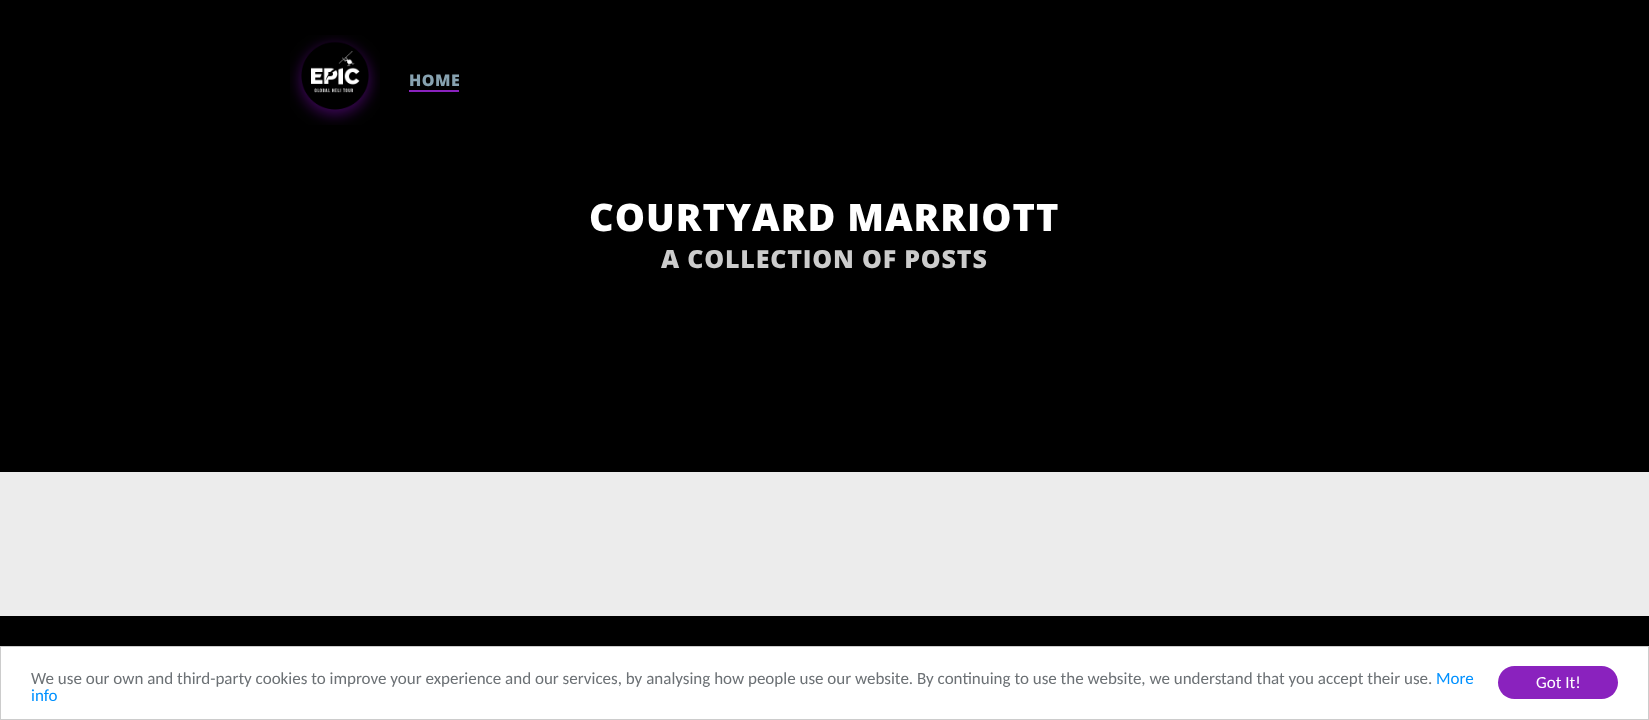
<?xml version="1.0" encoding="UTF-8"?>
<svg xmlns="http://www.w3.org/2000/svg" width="1649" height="720">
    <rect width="100%" height="100%" fill="#ECECEC"/>
    <rect x="0" y="0" width="1649" height="472" fill="#000000"/>
    <image x="290" y="35" width="90" height="90" href="img_01.png"/>
    <rect x="409" y="90" width="50" height="2" fill="#8A22BE"/>
    <text x="409" y="86" font-family="Open Sans" font-size="16" font-weight="800" letter-spacing="0.5" fill="#87A2B0">HOME</text>
    <text x="589" y="231" font-family="Open Sans" font-size="38" font-weight="800" letter-spacing="1" fill="#FFFFFF">COURTYARD MARRIOTT</text>
    <text x="661" y="268" font-family="Open Sans" font-size="25" font-weight="800" letter-spacing="0.8" fill="#CCCCCC">A COLLECTION OF POSTS</text>
    <rect x="0" y="616" width="1649" height="30" fill="#000000"/>
    <rect x="0.5" y="646.5" width="1648" height="73" fill="#FFFFFF" stroke="#CCCCCC"/>
    <text x="31" y="684" font-family="Carlito" font-size="17" fill="#6C7175">We use our own and third-party cookies to improve your experience and our services, by analysing how people use our website. By continuing to use the website, we understand that you accept their use.</text>
    <text x="1436" y="684" font-family="Carlito" font-size="17" fill="#0191FF">More</text>
    <text x="31" y="701" font-family="Carlito" font-size="17" fill="#0191FF">info</text>
    <rect x="1498" y="666" width="120" height="33" rx="16.5" fill="#8A22BE"/>
    <text x="1536" y="688" font-family="Carlito" font-size="17" fill="#FFFFFF">Got It!</text>
</svg>
